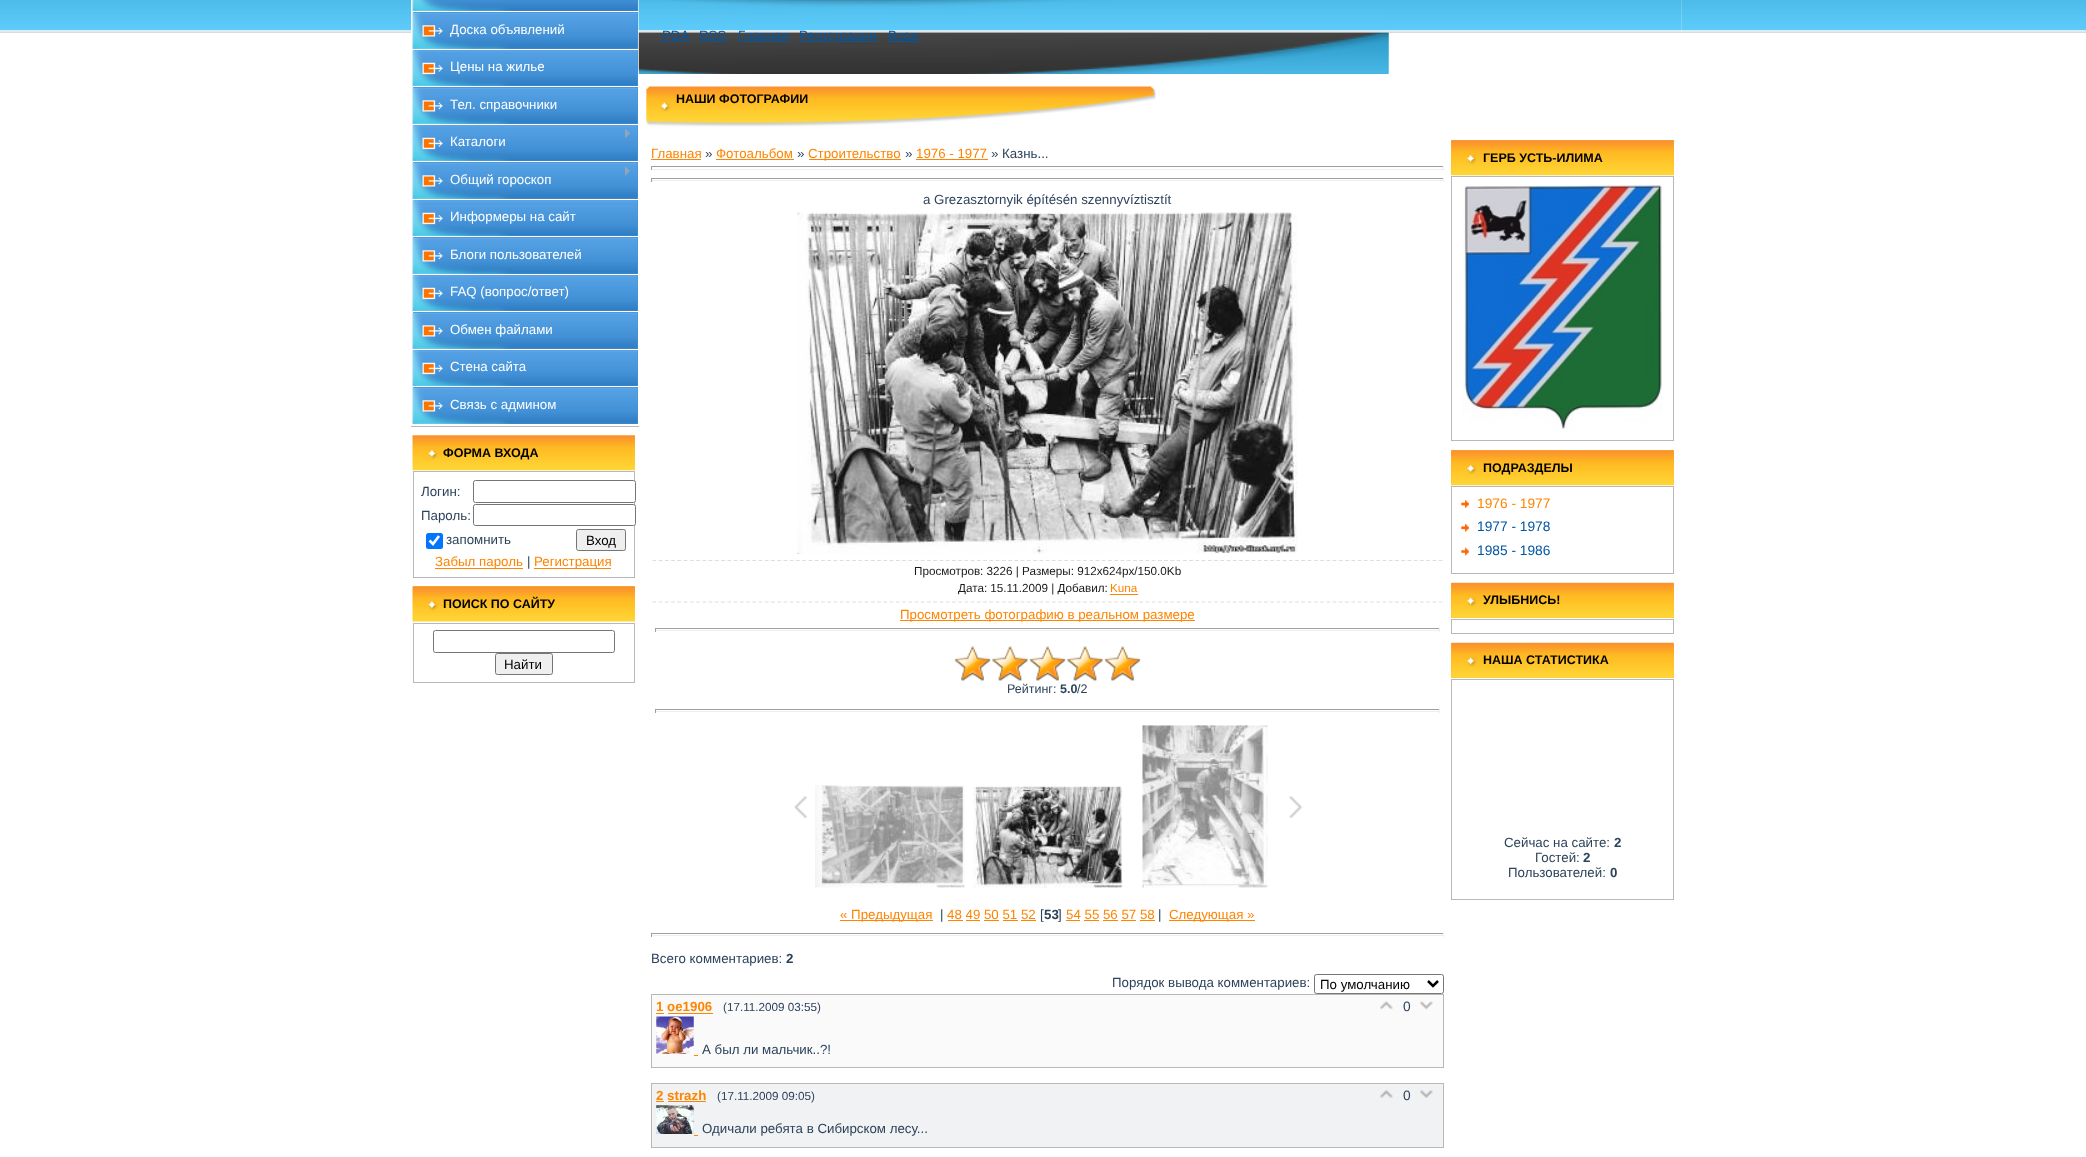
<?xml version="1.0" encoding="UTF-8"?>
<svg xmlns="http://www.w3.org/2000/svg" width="2086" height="1157">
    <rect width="100%" height="100%" fill="#FFFFFF"/>
    <image x="0" y="0" width="405" height="33" href="img_01.png"/>
    <image x="638" y="0" width="1044" height="33" href="img_12.png"/>
    <image x="1681" y="0" width="405" height="33" href="img_02.png"/>
    <image x="405" y="0" width="6" height="33" href="img_03.png"/>
    <rect x="411" y="426" width="228" height="1" fill="#B8B8B8"/>
    <rect x="413" y="0" width="225" height="13" fill="#4593D8"/>
    <image x="412" y="0" width="226" height="12" href="img_04.png"/>
    <rect x="413" y="11" width="225" height="1" fill="#FFFFFF"/>
    <rect x="637" y="13" width="1" height="36" fill="#4593D8"/>
    <image x="412" y="12" width="226" height="37" href="img_05.png"/>
    <text x="450" y="34" font-family="Liberation Sans" font-size="13.3" fill="#FFFFFF">Доска объявлений</text>
    <rect x="413" y="50" width="225" height="38" fill="#4593D8"/>
    <image x="412" y="50" width="226" height="37" href="img_06.png"/>
    <rect x="413" y="86" width="225" height="1" fill="#FFFFFF"/>
    <text x="450" y="71" font-family="Liberation Sans" font-size="13.3" fill="#FFFFFF">Цены на жилье</text>
    <rect x="637" y="88" width="1" height="36" fill="#4593D8"/>
    <image x="412" y="87" width="226" height="37" href="img_05.png"/>
    <text x="450" y="109" font-family="Liberation Sans" font-size="13.3" fill="#FFFFFF">Тел. справочники</text>
    <rect x="413" y="125" width="225" height="38" fill="#4593D8"/>
    <image x="412" y="125" width="226" height="37" href="img_06.png"/>
    <rect x="413" y="161" width="225" height="1" fill="#FFFFFF"/>
    <image x="625" y="129" width="5" height="9" href="img_07.png"/>
    <text x="450" y="146" font-family="Liberation Sans" font-size="13.3" fill="#FFFFFF">Каталоги</text>
    <rect x="637" y="163" width="1" height="36" fill="#4593D8"/>
    <image x="412" y="162" width="226" height="37" href="img_05.png"/>
    <image x="625" y="166" width="5" height="10" href="img_08.png"/>
    <text x="450" y="184" font-family="Liberation Sans" font-size="13.3" fill="#FFFFFF">Общий гороскоп</text>
    <rect x="413" y="200" width="225" height="38" fill="#4593D8"/>
    <image x="412" y="200" width="226" height="37" href="img_06.png"/>
    <rect x="413" y="236" width="225" height="1" fill="#FFFFFF"/>
    <text x="450" y="221" font-family="Liberation Sans" font-size="13.3" fill="#FFFFFF">Информеры на сайт</text>
    <rect x="637" y="238" width="1" height="36" fill="#4593D8"/>
    <image x="412" y="237" width="226" height="37" href="img_05.png"/>
    <text x="450" y="259" font-family="Liberation Sans" font-size="13.3" fill="#FFFFFF">Блоги пользователей</text>
    <rect x="413" y="275" width="225" height="38" fill="#4593D8"/>
    <image x="412" y="275" width="226" height="37" href="img_06.png"/>
    <rect x="413" y="311" width="225" height="1" fill="#FFFFFF"/>
    <text x="450" y="296" font-family="Liberation Sans" font-size="13.3" fill="#FFFFFF">FAQ (вопрос/ответ)</text>
    <rect x="637" y="313" width="1" height="36" fill="#4593D8"/>
    <image x="412" y="312" width="226" height="37" href="img_05.png"/>
    <text x="450" y="334" font-family="Liberation Sans" font-size="13.3" fill="#FFFFFF">Обмен файлами</text>
    <rect x="413" y="350" width="225" height="38" fill="#4593D8"/>
    <image x="412" y="350" width="226" height="37" href="img_09.png"/>
    <rect x="413" y="386" width="225" height="1" fill="#FFFFFF"/>
    <text x="450" y="371" font-family="Liberation Sans" font-size="13.3" fill="#FFFFFF">Стена сайта</text>
    <rect x="637" y="388" width="1" height="36" fill="#4593D8"/>
    <image x="412" y="387" width="226" height="37" href="img_05.png"/>
    <text x="450" y="409" font-family="Liberation Sans" font-size="13.3" fill="#FFFFFF">Связь с админом</text>
    <image x="412" y="435" width="223" height="36" href="img_10.png"/>
    <text x="443" y="457" font-family="Liberation Sans" font-size="12.5" font-weight="700" fill="#000000">ФОРМА ВХОДА</text>
    <rect x="413.5" y="471.5" width="221" height="106" fill="none" stroke="#B8B8B8"/>
    <text x="421" y="496" font-family="Liberation Sans" font-size="13.3" fill="#2D435B">Логин:</text>
    <rect x="473.5" y="480.5" width="162" height="22" rx="2" fill="#FFFFFF" stroke="#767676"/>
    <text x="421" y="520" font-family="Liberation Sans" font-size="13.3" fill="#2D435B">Пароль:</text>
    <rect x="473.5" y="504.5" width="162" height="21" rx="2" fill="#FFFFFF" stroke="#767676"/>
    <rect x="426" y="533" width="17" height="16" rx="2.5" fill="#0075FF"/>
    <path d="M 429.5 540.5 L 433 544 L 439 536" fill="none" stroke="#FFFFFF" stroke-width="2.6"/>
    <text x="446" y="544" font-family="Liberation Sans" font-size="13.3" fill="#2D435B">запомнить</text>
    <rect x="576.5" y="529.5" width="49" height="21" rx="2" fill="#EFEFEF" stroke="#767676"/>
    <text x="586" y="545" font-family="Liberation Sans" font-size="13.3" fill="#000000">Вход</text>
    <rect x="435" y="568" width="88" height="1" fill="#FF8400"/>
    <text x="435" y="566" font-family="Liberation Sans" font-size="13.3" fill="#FF8400">Забыл пароль</text>
    <text x="527" y="566" font-family="Liberation Sans" font-size="13.3" fill="#2D435B">|</text>
    <rect x="534" y="568" width="77" height="1" fill="#FF8400"/>
    <text x="534" y="566" font-family="Liberation Sans" font-size="13.3" fill="#FF8400">Регистрация</text>
    <rect x="413" y="586" width="222" height="1" fill="#FDB732"/>
    <image x="412" y="586" width="223" height="36" href="img_11.png"/>
    <text x="443" y="608" font-family="Liberation Sans" font-size="12.5" font-weight="700" fill="#000000">ПОИСК ПО САЙТУ</text>
    <rect x="413.5" y="623.5" width="221" height="59" fill="none" stroke="#B8B8B8"/>
    <rect x="433.5" y="630.5" width="181" height="22" rx="2" fill="none" stroke="#767676"/>
    <rect x="495.5" y="653.5" width="57" height="21" rx="2" fill="#EFEFEF" stroke="#767676"/>
    <text x="504" y="669" font-family="Liberation Sans" font-size="13.3" fill="#000000">Найти</text>
    <image x="638" y="0" width="751" height="74" href="img_13.png"/>
    <text x="662" y="40" font-family="Liberation Sans" font-size="13.3" fill="#0057A4">PDA</text>
    <rect x="661" y="41" width="28" height="1" fill="#0057A4"/>
    <text x="699" y="40" font-family="Liberation Sans" font-size="13.3" fill="#0057A4">RSS</text>
    <rect x="699" y="41" width="27" height="1" fill="#0057A4"/>
    <text x="738" y="40" font-family="Liberation Sans" font-size="13.3" fill="#0057A4">Главная</text>
    <rect x="738" y="41" width="51" height="1" fill="#0057A4"/>
    <rect x="799" y="41" width="79" height="1" fill="#0057A4"/>
    <text x="799" y="40" font-family="Liberation Sans" font-size="13.3" fill="#0057A4">Регистрация</text>
    <rect x="888" y="41" width="30" height="1" fill="#0057A4"/>
    <text x="888" y="40" font-family="Liberation Sans" font-size="13.3" fill="#0057A4">Вход</text>
    <image x="646" y="86" width="510" height="41" href="img_14.png"/>
    <text x="676" y="103" font-family="Liberation Sans" font-size="12.5" font-weight="700" fill="#000000">НАШИ ФОТОГРАФИИ</text>
    <text x="651" y="158" font-family="Liberation Sans" font-size="13.3" fill="#FF8400">Главная</text>
    <rect x="651" y="159" width="50" height="1" fill="#FF8400"/>
    <text x="705" y="158" font-family="Liberation Sans" font-size="13.3" fill="#2D435B">»</text>
    <text x="716" y="158" font-family="Liberation Sans" font-size="13.3" fill="#FF8400">Фотоальбом</text>
    <rect x="716" y="159" width="78" height="1" fill="#FF8400"/>
    <text x="797" y="158" font-family="Liberation Sans" font-size="13.3" fill="#2D435B">»</text>
    <rect x="809" y="159" width="92" height="1" fill="#FF8400"/>
    <text x="808" y="158" font-family="Liberation Sans" font-size="13.3" fill="#FF8400">Строительство</text>
    <text x="905" y="158" font-family="Liberation Sans" font-size="13.3" fill="#2D435B">»</text>
    <text x="916" y="158" font-family="Liberation Sans" font-size="13.3" fill="#FF8400">1976 - 1977</text>
    <rect x="916" y="159" width="72" height="1" fill="#FF8400"/>
    <text x="991" y="158" font-family="Liberation Sans" font-size="13.3" fill="#2D435B">» Казнь...</text>
    <rect x="651" y="166" width="793" height="1" fill="#9F9F9F"/>
    <rect x="1443" y="166" width="1" height="4" fill="#EEEEEE"/>
    <rect x="651" y="169" width="793" height="1" fill="#EEEEEE"/>
    <rect x="651" y="166" width="1" height="4" fill="#9F9F9F"/>
    <rect x="651" y="178" width="793" height="1" fill="#9F9F9F"/>
    <rect x="1443" y="178" width="1" height="4" fill="#EEEEEE"/>
    <rect x="651" y="180" width="793" height="1" fill="#EEEEEE"/>
    <rect x="651" y="178" width="1" height="4" fill="#9F9F9F"/>
    <text x="923" y="204" font-family="Liberation Sans" font-size="13.3" fill="#2D435B">a Grezasztornyik építésén szennyvíztisztít</text>
    <image x="797" y="212" width="501" height="342" href="img_15.png"/>
    <path d="M 652.5 560.5 H 1442.5" fill="none" stroke="#DDDDDD" stroke-width="1.2" stroke-dasharray="3.75 2.49"/>
    <path d="M 652.5 602 H 1442.5" fill="none" stroke="#DDDDDD" stroke-width="1.2" stroke-dasharray="3.75 2.49"/>
    <text x="914" y="575" font-family="Liberation Sans" font-size="11.7" fill="#1A1A1A">Просмотров: 3226 | Размеры: 912x624px/150.0Kb</text>
    <text x="958" y="592" font-family="Liberation Sans" font-size="11.7" fill="#1A1A1A">Дата: 15.11.2009 | Добавил:</text>
    <text x="1110" y="592" font-family="Liberation Sans" font-size="11.7" fill="#FF8400">Kuna</text>
    <rect x="1110" y="594" width="28" height="1" fill="#FF8400"/>
    <rect x="900" y="620" width="295" height="1" fill="#FF8400"/>
    <text x="900" y="619" font-family="Liberation Sans" font-size="13.3" fill="#FF8400">Просмотреть фотографию в реальном размере</text>
    <rect x="655" y="628" width="785" height="1" fill="#9F9F9F"/>
    <rect x="1439" y="628" width="1" height="4" fill="#EEEEEE"/>
    <rect x="655" y="630" width="785" height="1" fill="#EEEEEE"/>
    <rect x="655" y="628" width="1" height="4" fill="#9F9F9F"/>
    <image x="955" y="646" width="185" height="35" href="img_16.png"/>
    <image x="954" y="646" width="187" height="35" href="img_17.png"/>
    <text x="1007" y="693" font-family="Liberation Sans" font-size="12.5" fill="#2D435B">Рейтинг:</text>
    <text x="1060" y="693" font-family="Liberation Sans" font-size="12.5" font-weight="700" fill="#2D435B">5.0</text>
    <text x="1077" y="693" font-family="Liberation Sans" font-size="12.5" fill="#2D435B">/2</text>
    <rect x="655" y="709" width="785" height="1" fill="#9F9F9F"/>
    <rect x="1439" y="709" width="1" height="4" fill="#EEEEEE"/>
    <rect x="655" y="711" width="785" height="1" fill="#EEEEEE"/>
    <rect x="655" y="709" width="1" height="4" fill="#9F9F9F"/>
    <image x="794" y="796" width="14" height="22" href="img_18.png"/>
    <image x="815" y="785" width="150" height="103" href="img_19.png"/>
    <image x="973" y="786" width="150" height="102" href="img_20.png"/>
    <image x="1142" y="725" width="126" height="163" href="img_21.png"/>
    <image x="1289" y="796" width="14" height="22" href="img_22.png"/>
    <rect x="840" y="920" width="93" height="1" fill="#FF8400"/>
    <text x="840" y="919" font-family="Liberation Sans" font-size="13.3" fill="#FF8400">« Предыдущая</text>
    <text x="940" y="919" font-family="Liberation Sans" font-size="13.3" fill="#2D435B">|</text>
    <text x="947" y="919" font-family="Liberation Sans" font-size="13.3" fill="#FF8400">48 49 50 51 52</text>
    <rect x="948" y="920" width="15" height="1" fill="#FF8400"/>
    <text x="1040" y="919" font-family="Liberation Sans" font-size="13.3" fill="#2D435B">[</text>
    <text x="1044" y="919" font-family="Liberation Sans" font-size="13.3" font-weight="700" fill="#2D435B">53</text>
    <text x="1058" y="919" font-family="Liberation Sans" font-size="13.3" fill="#2D435B">]</text>
    <text x="1066" y="919" font-family="Liberation Sans" font-size="13.3" fill="#FF8400">54 55 56 57 58</text>
    <rect x="1066" y="920" width="14" height="1" fill="#FF8400"/>
    <text x="1158" y="919" font-family="Liberation Sans" font-size="13.3" fill="#2D435B">|</text>
    <rect x="1169" y="920" width="86" height="1" fill="#FF8400"/>
    <text x="1169" y="919" font-family="Liberation Sans" font-size="13.3" fill="#FF8400">Следующая »</text>
    <rect x="966" y="920" width="14" height="1" fill="#FF8400"/>
    <rect x="984" y="920" width="15" height="1" fill="#FF8400"/>
    <rect x="1003" y="920" width="15" height="1" fill="#FF8400"/>
    <rect x="1021" y="920" width="15" height="1" fill="#FF8400"/>
    <rect x="1084" y="920" width="15" height="1" fill="#FF8400"/>
    <rect x="1103" y="920" width="15" height="1" fill="#FF8400"/>
    <rect x="1121" y="920" width="15" height="1" fill="#FF8400"/>
    <rect x="1140" y="920" width="15" height="1" fill="#FF8400"/>
    <rect x="651" y="933" width="793" height="1" fill="#9F9F9F"/>
    <rect x="1443" y="933" width="1" height="4" fill="#EEEEEE"/>
    <rect x="651" y="935" width="793" height="1" fill="#EEEEEE"/>
    <rect x="651" y="933" width="1" height="4" fill="#9F9F9F"/>
    <text x="651" y="963" font-family="Liberation Sans" font-size="13.3" fill="#2D435B">Всего комментариев:</text>
    <text x="786" y="963" font-family="Liberation Sans" font-size="13.3" font-weight="700" fill="#2D435B">2</text>
    <text x="1112" y="987" font-family="Liberation Sans" font-size="13.3" fill="#2D435B">Порядок вывода комментариев:</text>
    <rect x="1314.5" y="974.5" width="129" height="19" rx="2" fill="none" stroke="#767676"/>
    <path d="M 1428 981 L 1433 986 L 1438 981" fill="none" stroke="#000000" stroke-width="2.5"/>
    <text x="1320" y="989" font-family="Liberation Sans" font-size="13.3" fill="#000000">По умолчанию</text>
    <rect x="651.5" y="994.5" width="792" height="73" fill="#FAFAFA" stroke="#B8B8B8"/>
    <text x="656" y="1011" font-family="Liberation Sans" font-size="13.3" font-weight="700" fill="#FF8400">1 oe1906</text>
    <rect x="656" y="1013" width="8" height="1" fill="#FF8400"/>
    <text x="723" y="1011" font-family="Liberation Sans" font-size="11.7" fill="#2D435B">(17.11.2009 03:55)</text>
    <rect x="668" y="1013" width="45" height="1" fill="#FF8400"/>
    <image x="1380" y="1001" width="13" height="9" href="img_23.png"/>
    <text x="1403" y="1011" font-family="Liberation Sans" font-size="13.75" fill="#2D435B">0</text>
    <image x="1420" y="1001" width="13" height="9" href="img_24.png"/>
    <image x="656" y="1016" width="38" height="38" href="img_25.png"/>
    <text x="702" y="1054" font-family="Liberation Sans" font-size="13.3" fill="#2D435B">А был ли мальчик..?!</text>
    <rect x="694" y="1055" width="4" height="1" fill="#FF8400"/>
    <rect x="651.5" y="1083.5" width="792" height="64" fill="#F1F2F3" stroke="#B8B8B8"/>
    <text x="656" y="1100" font-family="Liberation Sans" font-size="13.3" font-weight="700" fill="#FF8400">2 strazh</text>
    <rect x="656" y="1101" width="8" height="1" fill="#FF8400"/>
    <text x="717" y="1100" font-family="Liberation Sans" font-size="11.7" fill="#2D435B">(17.11.2009 09:05)</text>
    <rect x="668" y="1101" width="38" height="1" fill="#FF8400"/>
    <image x="1380" y="1090" width="13" height="8" href="img_26.png"/>
    <text x="1403" y="1100" font-family="Liberation Sans" font-size="13.75" fill="#2D435B">0</text>
    <image x="1420" y="1090" width="13" height="8" href="img_27.png"/>
    <image x="656" y="1105" width="38" height="29" href="img_28.png"/>
    <rect x="694" y="1135" width="4" height="1" fill="#FF8400"/>
    <text x="702" y="1133" font-family="Liberation Sans" font-size="13.3" fill="#2D435B">Одичали ребята в Сибирском лесу...</text>
    <rect x="1451" y="140" width="223" height="35" fill="#FDB732"/>
    <image x="1451" y="140" width="223" height="36" href="img_29.png"/>
    <text x="1483" y="162" font-family="Liberation Sans" font-size="12.5" font-weight="700" fill="#000000">ГЕРБ УСТЬ-ИЛИМА</text>
    <rect x="1451.5" y="176.5" width="222" height="264" fill="none" stroke="#B8B8B8"/>
    <image x="1462" y="184" width="200" height="246" href="img_30.png"/>
    <rect x="1451" y="450" width="223" height="35" fill="#FDB732"/>
    <image x="1451" y="450" width="223" height="36" href="img_29.png"/>
    <text x="1483" y="472" font-family="Liberation Sans" font-size="12.5" font-weight="700" fill="#000000">ПОДРАЗДЕЛЫ</text>
    <rect x="1451.5" y="486.5" width="222" height="87" fill="none" stroke="#B8B8B8"/>
    <image x="1461" y="500" width="8" height="8" href="img_31.png"/>
    <text x="1477" y="508" font-family="Liberation Sans" font-size="13.75" fill="#FF8400">1976 - 1977</text>
    <image x="1461" y="523" width="8" height="9" href="img_32.png"/>
    <text x="1477" y="531" font-family="Liberation Sans" font-size="13.75" fill="#0057A4">1977 - 1978</text>
    <image x="1461" y="547" width="8" height="9" href="img_33.png"/>
    <text x="1477" y="555" font-family="Liberation Sans" font-size="13.75" fill="#0057A4">1985 - 1986</text>
    <rect x="1451" y="583" width="223" height="35" fill="#FDB732"/>
    <image x="1451" y="582" width="223" height="36" href="img_34.png"/>
    <text x="1483" y="604" font-family="Liberation Sans" font-size="12.5" font-weight="700" fill="#000000">УЛЫБНИСЬ!</text>
    <rect x="1451.5" y="619.5" width="222" height="14" fill="none" stroke="#B8B8B8"/>
    <rect x="1451" y="643" width="223" height="35" fill="#FDB732"/>
    <image x="1451" y="642" width="223" height="36" href="img_34.png"/>
    <text x="1483" y="664" font-family="Liberation Sans" font-size="12.5" font-weight="700" fill="#000000">НАША СТАТИСТИКА</text>
    <rect x="1451.5" y="679.5" width="222" height="220" fill="none" stroke="#B8B8B8"/>
    <text x="1504" y="847" font-family="Liberation Sans" font-size="13.3" fill="#2D435B">Сейчас на сайте:</text>
    <text x="1614" y="847" font-family="Liberation Sans" font-size="13.3" font-weight="700" fill="#2D435B">2</text>
    <text x="1535" y="862" font-family="Liberation Sans" font-size="13.3" fill="#2D435B">Гостей:</text>
    <text x="1583" y="862" font-family="Liberation Sans" font-size="13.3" font-weight="700" fill="#2D435B">2</text>
    <text x="1508" y="877" font-family="Liberation Sans" font-size="13.3" fill="#2D435B">Пользователей:</text>
    <text x="1610" y="877" font-family="Liberation Sans" font-size="13.3" font-weight="700" fill="#2D435B">0</text>
</svg>
